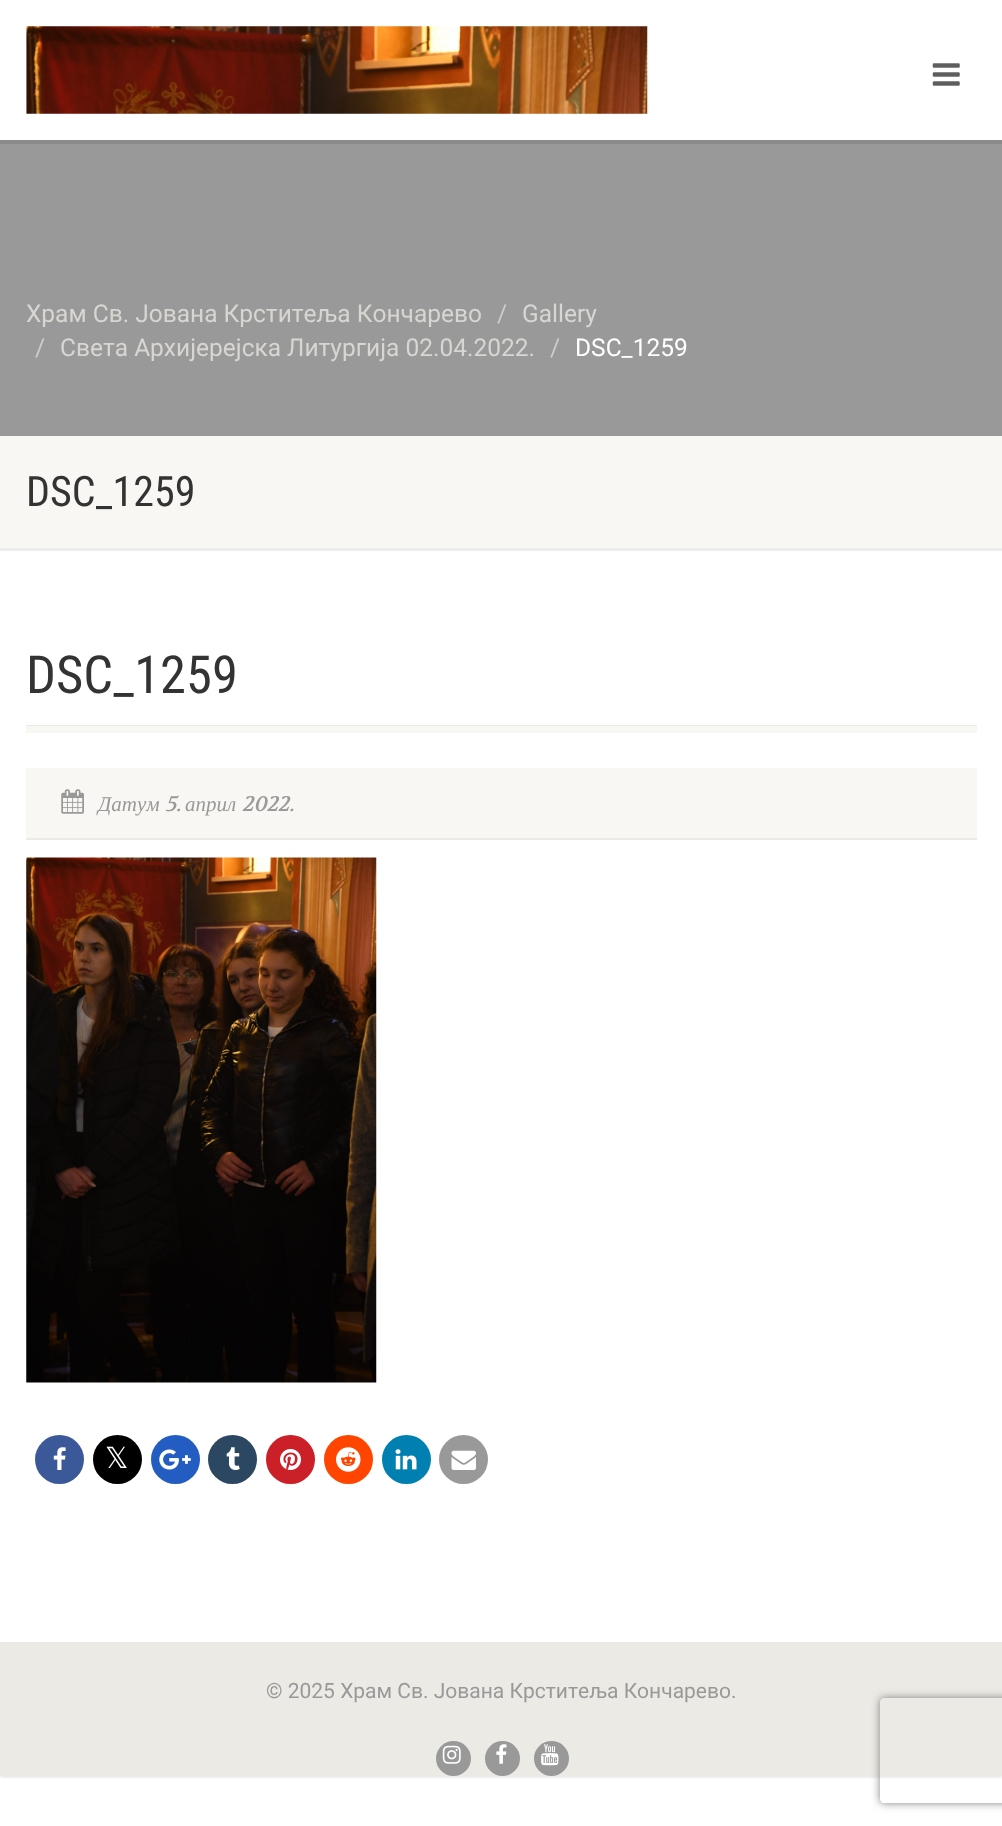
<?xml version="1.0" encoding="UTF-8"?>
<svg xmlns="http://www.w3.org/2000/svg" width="1002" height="1826">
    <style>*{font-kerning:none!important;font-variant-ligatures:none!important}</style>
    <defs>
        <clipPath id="clip1"><rect x="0" y="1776" width="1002" height="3"/></clipPath>
        <filter id="blur1" x="-50%" y="-200%" width="200%" height="500%"><feGaussianBlur stdDeviation="2"/></filter>
        <clipPath id="clip2"><path d="M 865 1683 H 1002 V 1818 H 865 Z M 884 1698 H 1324 C 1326 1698 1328 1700 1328 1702 V 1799 C 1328 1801 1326 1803 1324 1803 H 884 C 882 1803 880 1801 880 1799 V 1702 C 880 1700 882 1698 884 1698 Z" clip-rule="evenodd"/></clipPath>
        <filter id="blur2" x="-50%" y="-200%" width="200%" height="500%"><feGaussianBlur stdDeviation="4.5"/></filter>
    </defs>
    <rect width="100%" height="100%" fill="#FFFFFF"/>
    <g clip-path="url(#clip1)">
        <rect x="0" y="0" width="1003" height="1776" fill="#000000" fill-opacity="0.2" filter="url(#blur1)"/>
    </g>
    <path d="M 0 140 V 144 H 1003 V 4 V 140 Z" fill="#8A8A8A"/>
    <image x="26" y="26" width="622" height="88" href="img_01.png"/>
    <image x="932" y="63" width="28" height="23" href="img_02.png"/>
    <rect x="0" y="144" width="1002" height="292" fill="#999999"/>
    <text x="26" y="322" font-family="Roboto" font-size="24.5" fill="#D8D6D1">Храм Св. Јована Крститеља Кончарево</text>
    <text x="497" y="322" font-family="Roboto" font-size="24.5" fill="#CCCCCC">/</text>
    <text x="522" y="322" font-family="Roboto" font-size="24.5" fill="#D8D6D1">Gallery</text>
    <text x="35" y="356" font-family="Roboto" font-size="24.5" fill="#CCCCCC">/</text>
    <text x="60" y="356" font-family="Roboto" font-size="24.5" fill="#D8D6D1">Света Архијерејска Литургија 02.04.2022.</text>
    <text x="550" y="356" font-family="Roboto" font-size="24.5" fill="#CCCCCC">/</text>
    <text x="575" y="356" font-family="Roboto" font-size="24.5" fill="#FFFFFF">DSC_1259</text>
    <path d="M 0 548 V 551 H 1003 V 439 V 548 Z" fill="#EDEDED"/>
    <rect x="0" y="436" width="1002" height="112" fill="#F8F7F3"/>
    <text x="26" y="506" font-family="Roboto Condensed" font-size="42" fill="#333333">DSC_1259</text>
    <rect x="26" y="725" width="951" height="1" fill="#ECEAE4"/>
    <text x="26" y="693" font-family="Roboto Condensed" font-size="52.5" fill="#333333">DSC_1259</text>
    <rect x="26" y="726" width="951" height="7" fill="#F8F7F3"/>
    <rect x="26" y="768" width="951" height="70" fill="#F8F7F3"/>
    <rect x="26" y="838" width="951" height="2" fill="#ECEAE4"/>
    <image x="61" y="789" width="23" height="25" href="img_03.png"/>
    <text x="98" y="811" font-family="Liberation Serif" font-size="21" font-style="italic" fill="#999999">Датум</text>
    <text x="165" y="811" font-family="Volkhov" font-size="21" font-style="italic" fill="#999999">5.</text>
    <text x="185" y="811" font-family="Liberation Serif" font-size="21" font-style="italic" fill="#999999">април</text>
    <text x="242" y="811" font-family="Volkhov" font-size="21" font-style="italic" fill="#999999">2022.</text>
    <image x="26" y="857" width="351" height="526" href="img_04.png"/>
    <circle cx="59.5" cy="1459.5" r="24.5" fill="#3B5998"/>
    <image x="53" y="1447" width="13" height="23" href="img_05.png"/>
    <circle cx="117.5" cy="1459.5" r="24.5" fill="#000000"/>
    <text x="105" y="1468" font-family="DejaVu Sans" font-size="29" fill="#FFFFFF">𝕏</text>
    <circle cx="175.5" cy="1459.5" r="24.5" fill="#245DC1"/>
    <image x="159" y="1449" width="32" height="21" href="img_06.png"/>
    <circle cx="232.5" cy="1459.5" r="24.5" fill="#2C4762"/>
    <image x="226" y="1447" width="14" height="23" href="img_07.png"/>
    <circle cx="290.5" cy="1459.5" r="24.5" fill="#CB2027"/>
    <image x="280" y="1449" width="21" height="21" href="img_08.png"/>
    <circle cx="348.5" cy="1459.5" r="24.5" fill="#FF4500"/>
    <image x="336" y="1447" width="25" height="25" href="img_09.png"/>
    <circle cx="406.5" cy="1459.5" r="24.5" fill="#007FB1"/>
    <image x="395" y="1449" width="22" height="21" href="img_10.png"/>
    <circle cx="463.5" cy="1459.5" r="24.5" fill="#999999"/>
    <image x="451" y="1450" width="25" height="20" href="img_11.png"/>
    <rect x="0" y="1642" width="1002" height="134" fill="#ECEAE4"/>
    <text x="266" y="1698" font-family="Roboto" font-size="21" fill="#999999">© 2025 Храм Св. Јована Крститеља Кончарево.</text>
    <circle cx="453.5" cy="1758.5" r="17.5" fill="#999999"/>
    <image x="442" y="1745" width="19" height="19" href="img_12.png"/>
    <circle cx="502.5" cy="1758.5" r="17.5" fill="#999999"/>
    <image x="496" y="1744" width="11" height="20" href="img_13.png"/>
    <circle cx="551.5" cy="1758.5" r="17.5" fill="#999999"/>
    <image x="541" y="1744" width="18" height="22" href="img_14.png"/>
    <g clip-path="url(#clip2)">
        <rect x="880" y="1698" width="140" height="105" rx="4" fill="#808080" filter="url(#blur2)"/>
    </g>
</svg>
